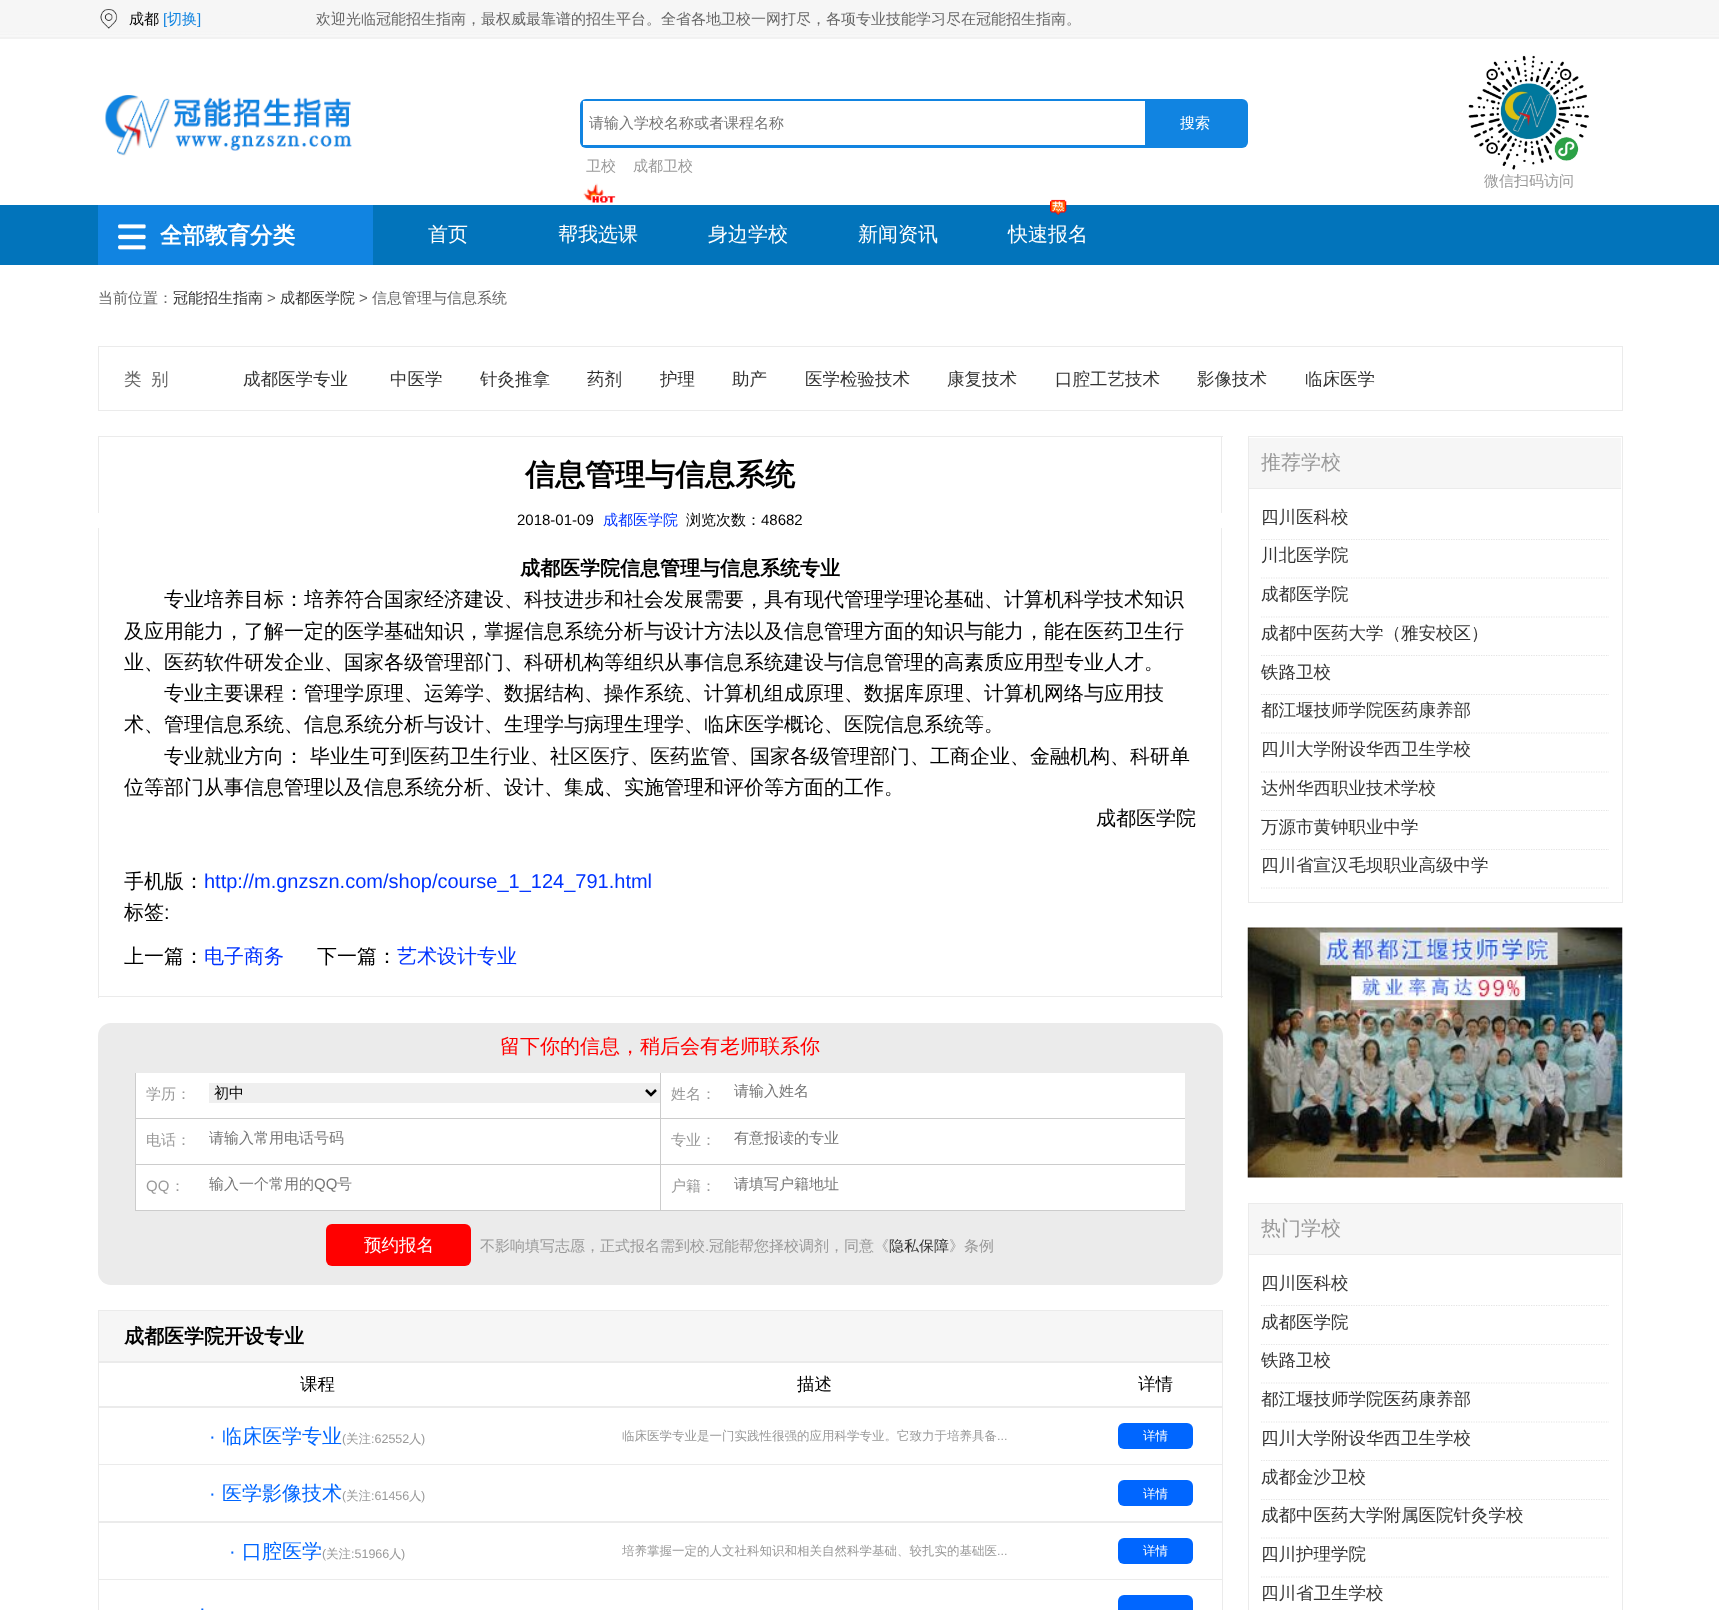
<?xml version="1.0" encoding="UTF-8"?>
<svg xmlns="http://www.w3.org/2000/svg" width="1719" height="1610">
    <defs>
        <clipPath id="clip1"><rect x="135" y="1073" width="1050" height="138"/></clipPath>
    </defs>
    <rect width="100%" height="100%" fill="#FFFFFF"/>
    <image x="0" y="0" width="1719" height="39" href="img_01.png"/>
    <image x="100" y="9" width="18" height="20" href="img_02.png"/>
    <text x="129" y="24" font-family="WenQuanYi Zen Hei" font-size="15" font-weight="500" fill="#000000">成都</text>
    <text x="163" y="24" font-family="Liberation Sans" font-size="15" fill="#1184E1">[</text>
    <text x="167" y="24" font-family="WenQuanYi Zen Hei" font-size="15" font-weight="500" fill="#1184E1">切换</text>
    <text x="197" y="24" font-family="Liberation Sans" font-size="15" fill="#1184E1">]</text>
    <text x="316" y="24" font-family="WenQuanYi Zen Hei" font-size="15" font-weight="500" fill="#666666">欢迎光临冠能招生指南，最权威最靠谱的招生平台。全省各地卫校一网打尽，各项专业技能学习尽在冠能招生指南。</text>
    <image x="105" y="95" width="247" height="61" href="img_03.png"/>
    <rect x="580" y="99" width="668" height="49" rx="6" fill="#1184E1"/>
    <rect x="583" y="101" width="562" height="44" fill="#FFFFFF"/>
    <text x="589" y="128" font-family="WenQuanYi Zen Hei" font-size="15" font-weight="500" fill="#757575">请输入学校名称或者课程名称</text>
    <text x="1180" y="128" font-family="WenQuanYi Zen Hei" font-size="15" font-weight="500" fill="#FFFFFF">搜索</text>
    <text x="586" y="171" font-family="WenQuanYi Zen Hei" font-size="15" font-weight="500" fill="#999999">卫校</text>
    <text x="633" y="171" font-family="WenQuanYi Zen Hei" font-size="15" font-weight="500" fill="#999999">成都卫校</text>
    <image x="1468" y="55" width="121" height="115" href="img_04.png"/>
    <text x="1484" y="186" font-family="WenQuanYi Zen Hei" font-size="15" font-weight="500" fill="#999999">微信扫码访问</text>
    <rect x="0" y="205" width="1719" height="60" fill="#0274BB"/>
    <rect x="98" y="205" width="275" height="60" fill="#1184E1"/>
    <image x="118" y="224" width="28" height="26" href="img_05.png"/>
    <text x="160" y="243" font-family="WenQuanYi Zen Hei" font-size="22.5" font-weight="700" fill="#FFFFFF">全部教育分类</text>
    <text x="428" y="241" font-family="WenQuanYi Zen Hei" font-size="20" font-weight="500" fill="#FFFFFF">首页</text>
    <image x="583" y="183" width="33" height="20" href="img_06.png"/>
    <text x="558" y="241" font-family="WenQuanYi Zen Hei" font-size="20" font-weight="500" fill="#FFFFFF">帮我选课</text>
    <text x="708" y="241" font-family="WenQuanYi Zen Hei" font-size="20" font-weight="500" fill="#FFFFFF">身边学校</text>
    <text x="858" y="241" font-family="WenQuanYi Zen Hei" font-size="20" font-weight="500" fill="#FFFFFF">新闻资讯</text>
    <image x="1050" y="199" width="17" height="16" href="img_07.png"/>
    <text x="1008" y="241" font-family="WenQuanYi Zen Hei" font-size="20" font-weight="500" fill="#FFFFFF">快速报名</text>
    <text x="98" y="303" font-family="WenQuanYi Zen Hei" font-size="15" font-weight="500" fill="#666666">当前位置：</text>
    <text x="173" y="303" font-family="WenQuanYi Zen Hei" font-size="15" font-weight="500" fill="#333333">冠能招生指南</text>
    <text x="267" y="303" font-family="Liberation Sans" font-size="15" fill="#666666">&gt;</text>
    <text x="280" y="303" font-family="WenQuanYi Zen Hei" font-size="15" font-weight="500" fill="#333333">成都医学院</text>
    <text x="359" y="303" font-family="Liberation Sans" font-size="15" fill="#666666">&gt;</text>
    <text x="372" y="303" font-family="WenQuanYi Zen Hei" font-size="15" font-weight="500" fill="#666666">信息管理与信息系统</text>
    <rect x="98.5" y="346.5" width="1524" height="64" fill="none" stroke="#EBEBEB"/>
    <text x="124" y="385" font-family="WenQuanYi Zen Hei" font-size="17.5" font-weight="500" fill="#666666">类</text>
    <text x="151" y="385" font-family="WenQuanYi Zen Hei" font-size="17.5" font-weight="500" fill="#666666">别</text>
    <text x="243" y="385" font-family="WenQuanYi Zen Hei" font-size="17.5" font-weight="500" fill="#333333">成都医学专业</text>
    <text x="390" y="385" font-family="WenQuanYi Zen Hei" font-size="17.5" font-weight="500" fill="#333333">中医学</text>
    <text x="480" y="385" font-family="WenQuanYi Zen Hei" font-size="17.5" font-weight="500" fill="#333333">针灸推拿</text>
    <text x="587" y="385" font-family="WenQuanYi Zen Hei" font-size="17.5" font-weight="500" fill="#333333">药剂</text>
    <text x="660" y="385" font-family="WenQuanYi Zen Hei" font-size="17.5" font-weight="500" fill="#333333">护理</text>
    <text x="732" y="385" font-family="WenQuanYi Zen Hei" font-size="17.5" font-weight="500" fill="#333333">助产</text>
    <text x="805" y="385" font-family="WenQuanYi Zen Hei" font-size="17.5" font-weight="500" fill="#333333">医学检验技术</text>
    <text x="947" y="385" font-family="WenQuanYi Zen Hei" font-size="17.5" font-weight="500" fill="#333333">康复技术</text>
    <text x="1055" y="385" font-family="WenQuanYi Zen Hei" font-size="17.5" font-weight="500" fill="#333333">口腔工艺技术</text>
    <text x="1197" y="385" font-family="WenQuanYi Zen Hei" font-size="17.5" font-weight="500" fill="#333333">影像技术</text>
    <text x="1305" y="385" font-family="WenQuanYi Zen Hei" font-size="17.5" font-weight="500" fill="#333333">临床医学</text>
    <rect x="98" y="436" width="1125" height="1" fill="#EBEBEB"/>
    <rect x="1221" y="436" width="1" height="77" fill="#EBEBEB"/>
    <rect x="98" y="436" width="1" height="77" fill="#EBEBEB"/>
    <text x="525" y="485" font-family="WenQuanYi Zen Hei" font-size="30" font-weight="700" fill="#000000">信息管理与信息系统</text>
    <text x="517" y="525" font-family="Liberation Sans" font-size="15" fill="#000000">2018-01-09</text>
    <text x="603" y="525" font-family="WenQuanYi Zen Hei" font-size="15" font-weight="500" fill="#0033FF">成都医学院</text>
    <text x="686" y="525" font-family="WenQuanYi Zen Hei" font-size="15" font-weight="500" fill="#000000">浏览次数：</text>
    <text x="761" y="525" font-family="Liberation Sans" font-size="15" fill="#000000">48682</text>
    <rect x="1221" y="528" width="1" height="470" fill="#EBEBEB"/>
    <rect x="98" y="996" width="1125" height="1" fill="#EBEBEB"/>
    <rect x="98" y="528" width="1" height="470" fill="#EBEBEB"/>
    <text x="520" y="575" font-family="WenQuanYi Zen Hei" font-size="20" font-weight="700" fill="#000000">成都医学院信息管理与信息系统专业</text>
    <text x="164" y="606" font-family="WenQuanYi Zen Hei" font-size="20" font-weight="500" fill="#000000">专业培养目标：培养符合国家经济建设、科技进步和社会发展需要，具有现代管理学理论基础、计算机科学技术知识</text>
    <text font-family="WenQuanYi Zen Hei" font-size="20" font-weight="500" fill="#000000">
        <tspan x="124" y="638">及应用能力，了解一定的医学基础知识，掌握信息系统分析与设计方法以及信息管理方面的知识与能力，能在医药卫生行</tspan>
        <tspan x="124" y="669">业、医药软件研发企业、国家各级管理部门、科研机构等组织从事信息系统建设与信息管理的高素质应用型专业人才。</tspan>
    </text>
    <text x="164" y="700" font-family="WenQuanYi Zen Hei" font-size="20" font-weight="500" fill="#000000">专业主要课程：管理学原理、运筹学、数据结构、操作系统、计算机组成原理、数据库原理、计算机网络与应用技</text>
    <text x="124" y="731" font-family="WenQuanYi Zen Hei" font-size="20" font-weight="500" fill="#000000">术、管理信息系统、信息系统分析与设计、生理学与病理生理学、临床医学概论、医院信息系统等。</text>
    <text x="164" y="763" font-family="WenQuanYi Zen Hei" font-size="20" font-weight="500" fill="#000000">专业就业方向： 毕业生可到医药卫生行业、社区医疗、医药监管、国家各级管理部门、工商企业、金融机构、科研单</text>
    <text x="124" y="794" font-family="WenQuanYi Zen Hei" font-size="20" font-weight="500" fill="#000000">位等部门从事信息管理以及信息系统分析、设计、集成、实施管理和评价等方面的工作。</text>
    <text x="1096" y="825" font-family="WenQuanYi Zen Hei" font-size="20" font-weight="500" fill="#000000">成都医学院</text>
    <text x="124" y="888" font-family="WenQuanYi Zen Hei" font-size="20" font-weight="500" fill="#000000">手机版：</text>
    <text x="204" y="888" font-family="Liberation Sans" font-size="20" fill="#0033FF">http://m.gnzszn.com/shop/course_1_124_791.html</text>
    <text x="124" y="919" font-family="WenQuanYi Zen Hei" font-size="20" font-weight="500" fill="#000000">标签</text>
    <text x="164" y="919" font-family="Liberation Sans" font-size="20" fill="#000000">:</text>
    <text x="124" y="963" font-family="WenQuanYi Zen Hei" font-size="20" font-weight="500" fill="#000000">上一篇：</text>
    <text x="204" y="963" font-family="WenQuanYi Zen Hei" font-size="20" font-weight="500" fill="#0033FF">电子商务</text>
    <text x="317" y="963" font-family="WenQuanYi Zen Hei" font-size="20" font-weight="500" fill="#000000">下一篇：</text>
    <text x="397" y="963" font-family="WenQuanYi Zen Hei" font-size="20" font-weight="500" fill="#0033FF">艺术设计专业</text>
    <rect x="98" y="1023" width="1125" height="262" rx="13" fill="#EBEBEB"/>
    <text x="500" y="1053" font-family="WenQuanYi Zen Hei" font-size="20" font-weight="500" fill="#FF0000">留下你的信息，稍后会有老师联系你</text>
    <rect x="136" y="1073" width="524" height="45" fill="#FFFFFF"/>
    <g clip-path="url(#clip1)">
        <rect x="135.5" y="1071.5" width="527" height="47" fill="none" stroke="#CCCCCC"/>
    </g>
    <text x="146" y="1099" font-family="WenQuanYi Zen Hei" font-size="15" font-weight="500" fill="#999999">学历：</text>
    <rect x="209" y="1083" width="451" height="20" fill="#EFEFEF"/>
    <path d="M 646 1090 L 651 1095 L 656 1090" fill="none" stroke="#000000" stroke-width="2.5"/>
    <text x="214" y="1098" font-family="WenQuanYi Zen Hei" font-size="15" font-weight="500" fill="#000000">初中</text>
    <rect x="661" y="1073" width="524" height="45" fill="#FFFFFF"/>
    <g clip-path="url(#clip1)">
        <rect x="660.5" y="1071.5" width="527" height="47" fill="none" stroke="#CCCCCC"/>
    </g>
    <text x="671" y="1099" font-family="WenQuanYi Zen Hei" font-size="15" font-weight="500" fill="#999999">姓名：</text>
    <text x="734" y="1096" font-family="WenQuanYi Zen Hei" font-size="15" font-weight="500" fill="#757575">请输入姓名</text>
    <rect x="136" y="1119" width="524" height="45" fill="#FFFFFF"/>
    <rect x="135.5" y="1118.5" width="527" height="46" fill="none" stroke="#CCCCCC"/>
    <text x="146" y="1145" font-family="WenQuanYi Zen Hei" font-size="15" font-weight="500" fill="#999999">电话：</text>
    <text x="209" y="1143" font-family="WenQuanYi Zen Hei" font-size="15" font-weight="500" fill="#757575">请输入常用电话号码</text>
    <rect x="661" y="1119" width="524" height="45" fill="#FFFFFF"/>
    <g clip-path="url(#clip1)">
        <rect x="660.5" y="1118.5" width="527" height="46" fill="none" stroke="#CCCCCC"/>
    </g>
    <text x="671" y="1145" font-family="WenQuanYi Zen Hei" font-size="15" font-weight="500" fill="#999999">专业：</text>
    <text x="734" y="1143" font-family="WenQuanYi Zen Hei" font-size="15" font-weight="500" fill="#757575">有意报读的专业</text>
    <rect x="136" y="1165" width="524" height="45" fill="#FFFFFF"/>
    <rect x="135.5" y="1164.5" width="527" height="46" fill="none" stroke="#CCCCCC"/>
    <text x="146" y="1191" font-family="Liberation Sans" font-size="15" fill="#999999">QQ</text>
    <text x="170" y="1191" font-family="WenQuanYi Zen Hei" font-size="15" font-weight="500" fill="#999999">：</text>
    <text x="209" y="1189" font-family="WenQuanYi Zen Hei" font-size="15" font-weight="500" fill="#757575">输入一个常用的</text>
    <text x="314" y="1189" font-family="Liberation Sans" font-size="15" fill="#757575">QQ</text>
    <text x="337" y="1189" font-family="WenQuanYi Zen Hei" font-size="15" font-weight="500" fill="#757575">号</text>
    <rect x="661" y="1165" width="524" height="45" fill="#FFFFFF"/>
    <g clip-path="url(#clip1)">
        <rect x="660.5" y="1164.5" width="527" height="46" fill="none" stroke="#CCCCCC"/>
    </g>
    <text x="671" y="1191" font-family="WenQuanYi Zen Hei" font-size="15" font-weight="500" fill="#999999">户籍：</text>
    <text x="734" y="1189" font-family="WenQuanYi Zen Hei" font-size="15" font-weight="500" fill="#757575">请填写户籍地址</text>
    <rect x="326" y="1224" width="145" height="42" rx="6" fill="#FF0000"/>
    <text x="364" y="1251" font-family="WenQuanYi Zen Hei" font-size="17.5" font-weight="500" fill="#FFFFFF">预约报名</text>
    <text x="480" y="1251" font-family="WenQuanYi Zen Hei" font-size="15" font-weight="500" fill="#999999">不影响填写志愿，正式报名需到校</text>
    <text x="705" y="1251" font-family="Liberation Sans" font-size="15" fill="#999999">.</text>
    <text x="709" y="1251" font-family="WenQuanYi Zen Hei" font-size="15" font-weight="500" fill="#999999">冠能帮您择校调剂，同意《</text>
    <text x="889" y="1251" font-family="WenQuanYi Zen Hei" font-size="15" font-weight="500" fill="#333333">隐私保障</text>
    <text x="949" y="1251" font-family="WenQuanYi Zen Hei" font-size="15" font-weight="500" fill="#999999">》条例</text>
    <rect x="99" y="1311" width="1123" height="50" fill="#F6F6F6"/>
    <rect x="98.5" y="1310.5" width="1124" height="52" fill="none" stroke="#EBEBEB"/>
    <text x="124" y="1343" font-family="WenQuanYi Zen Hei" font-size="20" font-weight="700" fill="#000000">成都医学院开设专业</text>
    <rect x="98.5" y="1361.5" width="1124" height="46" fill="none" stroke="#EBEBEB"/>
    <text x="300" y="1390" font-family="WenQuanYi Zen Hei" font-size="17.5" font-weight="500" fill="#000000">课程</text>
    <text x="797" y="1390" font-family="WenQuanYi Zen Hei" font-size="17.5" font-weight="500" fill="#000000">描述</text>
    <text x="1138" y="1390" font-family="WenQuanYi Zen Hei" font-size="17.5" font-weight="500" fill="#000000">详情</text>
    <rect x="98.5" y="1406.5" width="1124" height="58" fill="none" stroke="#EBEBEB"/>
    <text x="209" y="1443" font-family="Liberation Sans" font-size="20" fill="#0066FF">·</text>
    <text x="222" y="1443" font-family="WenQuanYi Zen Hei" font-size="20" font-weight="500" fill="#0066FF">临床医学专业</text>
    <text x="342" y="1443" font-family="Liberation Sans" font-size="12.5" fill="#999999">(</text>
    <text x="346" y="1443" font-family="WenQuanYi Zen Hei" font-size="12.5" font-weight="500" fill="#999999">关注</text>
    <text x="371" y="1443" font-family="Liberation Sans" font-size="12.5" fill="#999999">:62552</text>
    <text x="409" y="1443" font-family="WenQuanYi Zen Hei" font-size="12.5" font-weight="500" fill="#999999">人</text>
    <text x="421" y="1443" font-family="Liberation Sans" font-size="12.5" fill="#999999">)</text>
    <text x="622" y="1440" font-family="WenQuanYi Zen Hei" font-size="12.5" font-weight="500" fill="#999999">临床医学专业是一门实践性很强的应用科学专业。它致力于培养具备</text>
    <text x="997" y="1440" font-family="Liberation Sans" font-size="12.5" fill="#999999">...</text>
    <rect x="1118" y="1423" width="75" height="26" rx="6" fill="#0066FF"/>
    <text x="1143" y="1440" font-family="WenQuanYi Zen Hei" font-size="12.5" font-weight="500" fill="#FFFFFF">详情</text>
    <rect x="98.5" y="1464.5" width="1124" height="58" fill="none" stroke="#EBEBEB"/>
    <text x="209" y="1500" font-family="Liberation Sans" font-size="20" fill="#0066FF">·</text>
    <text x="222" y="1500" font-family="WenQuanYi Zen Hei" font-size="20" font-weight="500" fill="#0066FF">医学影像技术</text>
    <text x="342" y="1500" font-family="Liberation Sans" font-size="12.5" fill="#999999">(</text>
    <text x="346" y="1500" font-family="WenQuanYi Zen Hei" font-size="12.5" font-weight="500" fill="#999999">关注</text>
    <text x="371" y="1500" font-family="Liberation Sans" font-size="12.5" fill="#999999">:61456</text>
    <text x="409" y="1500" font-family="WenQuanYi Zen Hei" font-size="12.5" font-weight="500" fill="#999999">人</text>
    <text x="421" y="1500" font-family="Liberation Sans" font-size="12.5" fill="#999999">)</text>
    <rect x="1118" y="1480" width="75" height="26" rx="6" fill="#0066FF"/>
    <text x="1143" y="1498" font-family="WenQuanYi Zen Hei" font-size="12.5" font-weight="500" fill="#FFFFFF">详情</text>
    <rect x="98.5" y="1521.5" width="1124" height="58" fill="none" stroke="#EBEBEB"/>
    <text x="229" y="1558" font-family="Liberation Sans" font-size="20" fill="#0066FF">·</text>
    <text x="242" y="1558" font-family="WenQuanYi Zen Hei" font-size="20" font-weight="500" fill="#0066FF">口腔医学</text>
    <text x="322" y="1558" font-family="Liberation Sans" font-size="12.5" fill="#999999">(</text>
    <text x="326" y="1558" font-family="WenQuanYi Zen Hei" font-size="12.5" font-weight="500" fill="#999999">关注</text>
    <text x="351" y="1558" font-family="Liberation Sans" font-size="12.5" fill="#999999">:51966</text>
    <text x="389" y="1558" font-family="WenQuanYi Zen Hei" font-size="12.5" font-weight="500" fill="#999999">人</text>
    <text x="401" y="1558" font-family="Liberation Sans" font-size="12.5" fill="#999999">)</text>
    <text x="622" y="1555" font-family="WenQuanYi Zen Hei" font-size="12.5" font-weight="500" fill="#999999">培养掌握一定的人文社科知识和相关自然科学基础、较扎实的基础医</text>
    <text x="997" y="1555" font-family="Liberation Sans" font-size="12.5" fill="#999999">...</text>
    <rect x="1118" y="1538" width="75" height="26" rx="6" fill="#0066FF"/>
    <text x="1143" y="1555" font-family="WenQuanYi Zen Hei" font-size="12.5" font-weight="500" fill="#FFFFFF">详情</text>
    <rect x="98.5" y="1579.5" width="1124" height="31" fill="none" stroke="#EBEBEB"/>
    <text x="199" y="1615" font-family="Liberation Sans" font-size="20" fill="#0066FF">·</text>
    <rect x="1118" y="1595" width="75" height="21" rx="6" fill="#0066FF"/>
    <rect x="1248.5" y="436.5" width="374" height="466" fill="none" stroke="#EBEBEB"/>
    <rect x="1249" y="438" width="372" height="50" fill="#F6F6F6"/>
    <rect x="1249" y="488" width="372" height="1" fill="#EBEBEB"/>
    <text x="1261" y="469" font-family="WenQuanYi Zen Hei" font-size="20" font-weight="500" fill="#999999">推荐学校</text>
    <path d="M 1261 539.5 H 1609" fill="none" stroke="#E4E4E4" stroke-width="1.2" stroke-dasharray="1.25 1.25"/>
    <text x="1261" y="523" font-family="WenQuanYi Zen Hei" font-size="17.5" font-weight="500" fill="#333333">四川医科校</text>
    <path d="M 1261 578 H 1609" fill="none" stroke="#E4E4E4" stroke-width="1.2" stroke-dasharray="1.25 1.25"/>
    <text x="1261" y="561" font-family="WenQuanYi Zen Hei" font-size="17.5" font-weight="500" fill="#333333">川北医学院</text>
    <path d="M 1261 617 H 1609" fill="none" stroke="#E4E4E4" stroke-width="1.2" stroke-dasharray="1.25 1.25"/>
    <text x="1261" y="600" font-family="WenQuanYi Zen Hei" font-size="17.5" font-weight="500" fill="#333333">成都医学院</text>
    <path d="M 1261 655.5 H 1609" fill="none" stroke="#E4E4E4" stroke-width="1.2" stroke-dasharray="1.25 1.25"/>
    <text x="1261" y="639" font-family="WenQuanYi Zen Hei" font-size="17.5" font-weight="500" fill="#333333">成都中医药大学（雅安校区）</text>
    <path d="M 1261 694.5 H 1609" fill="none" stroke="#E4E4E4" stroke-width="1.2" stroke-dasharray="1.25 1.25"/>
    <text x="1261" y="678" font-family="WenQuanYi Zen Hei" font-size="17.5" font-weight="500" fill="#333333">铁路卫校</text>
    <path d="M 1261 733 H 1609" fill="none" stroke="#E4E4E4" stroke-width="1.2" stroke-dasharray="1.25 1.25"/>
    <text x="1261" y="716" font-family="WenQuanYi Zen Hei" font-size="17.5" font-weight="500" fill="#333333">都江堰技师学院医药康养部</text>
    <path d="M 1261 772 H 1609" fill="none" stroke="#E4E4E4" stroke-width="1.2" stroke-dasharray="1.25 1.25"/>
    <text x="1261" y="755" font-family="WenQuanYi Zen Hei" font-size="17.5" font-weight="500" fill="#333333">四川大学附设华西卫生学校</text>
    <path d="M 1261 810.5 H 1609" fill="none" stroke="#E4E4E4" stroke-width="1.2" stroke-dasharray="1.25 1.25"/>
    <text x="1261" y="794" font-family="WenQuanYi Zen Hei" font-size="17.5" font-weight="500" fill="#333333">达州华西职业技术学校</text>
    <path d="M 1261 849.5 H 1609" fill="none" stroke="#E4E4E4" stroke-width="1.2" stroke-dasharray="1.25 1.25"/>
    <text x="1261" y="833" font-family="WenQuanYi Zen Hei" font-size="17.5" font-weight="500" fill="#333333">万源市黄钟职业中学</text>
    <path d="M 1261 888 H 1609" fill="none" stroke="#E4E4E4" stroke-width="1.2" stroke-dasharray="1.25 1.25"/>
    <text x="1261" y="871" font-family="WenQuanYi Zen Hei" font-size="17.5" font-weight="500" fill="#333333">四川省宣汉毛坝职业高级中学</text>
    <image x="1247" y="927" width="376" height="251" href="img_08.png"/>
    <rect x="1248.5" y="1203.5" width="374" height="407" fill="none" stroke="#EBEBEB"/>
    <rect x="1249" y="1204" width="372" height="50" fill="#F6F6F6"/>
    <rect x="1249" y="1254" width="372" height="1" fill="#EBEBEB"/>
    <text x="1261" y="1235" font-family="WenQuanYi Zen Hei" font-size="20" font-weight="500" fill="#999999">热门学校</text>
    <path d="M 1261 1305.5 H 1609" fill="none" stroke="#E4E4E4" stroke-width="1.2" stroke-dasharray="1.25 1.25"/>
    <text x="1261" y="1289" font-family="WenQuanYi Zen Hei" font-size="17.5" font-weight="500" fill="#333333">四川医科校</text>
    <path d="M 1261 1344.5 H 1609" fill="none" stroke="#E4E4E4" stroke-width="1.2" stroke-dasharray="1.25 1.25"/>
    <text x="1261" y="1328" font-family="WenQuanYi Zen Hei" font-size="17.5" font-weight="500" fill="#333333">成都医学院</text>
    <path d="M 1261 1383 H 1609" fill="none" stroke="#E4E4E4" stroke-width="1.2" stroke-dasharray="1.25 1.25"/>
    <text x="1261" y="1366" font-family="WenQuanYi Zen Hei" font-size="17.5" font-weight="500" fill="#333333">铁路卫校</text>
    <path d="M 1261 1422 H 1609" fill="none" stroke="#E4E4E4" stroke-width="1.2" stroke-dasharray="1.25 1.25"/>
    <text x="1261" y="1405" font-family="WenQuanYi Zen Hei" font-size="17.5" font-weight="500" fill="#333333">都江堰技师学院医药康养部</text>
    <path d="M 1261 1460.5 H 1609" fill="none" stroke="#E4E4E4" stroke-width="1.2" stroke-dasharray="1.25 1.25"/>
    <text x="1261" y="1444" font-family="WenQuanYi Zen Hei" font-size="17.5" font-weight="500" fill="#333333">四川大学附设华西卫生学校</text>
    <path d="M 1261 1499.5 H 1609" fill="none" stroke="#E4E4E4" stroke-width="1.2" stroke-dasharray="1.25 1.25"/>
    <text x="1261" y="1483" font-family="WenQuanYi Zen Hei" font-size="17.5" font-weight="500" fill="#333333">成都金沙卫校</text>
    <path d="M 1261 1538 H 1609" fill="none" stroke="#E4E4E4" stroke-width="1.2" stroke-dasharray="1.25 1.25"/>
    <text x="1261" y="1521" font-family="WenQuanYi Zen Hei" font-size="17.5" font-weight="500" fill="#333333">成都中医药大学附属医院针灸学校</text>
    <path d="M 1261 1577 H 1609" fill="none" stroke="#E4E4E4" stroke-width="1.2" stroke-dasharray="1.25 1.25"/>
    <text x="1261" y="1560" font-family="WenQuanYi Zen Hei" font-size="17.5" font-weight="500" fill="#333333">四川护理学院</text>
    <text x="1261" y="1599" font-family="WenQuanYi Zen Hei" font-size="17.5" font-weight="500" fill="#333333">四川省卫生学校</text>
</svg>
